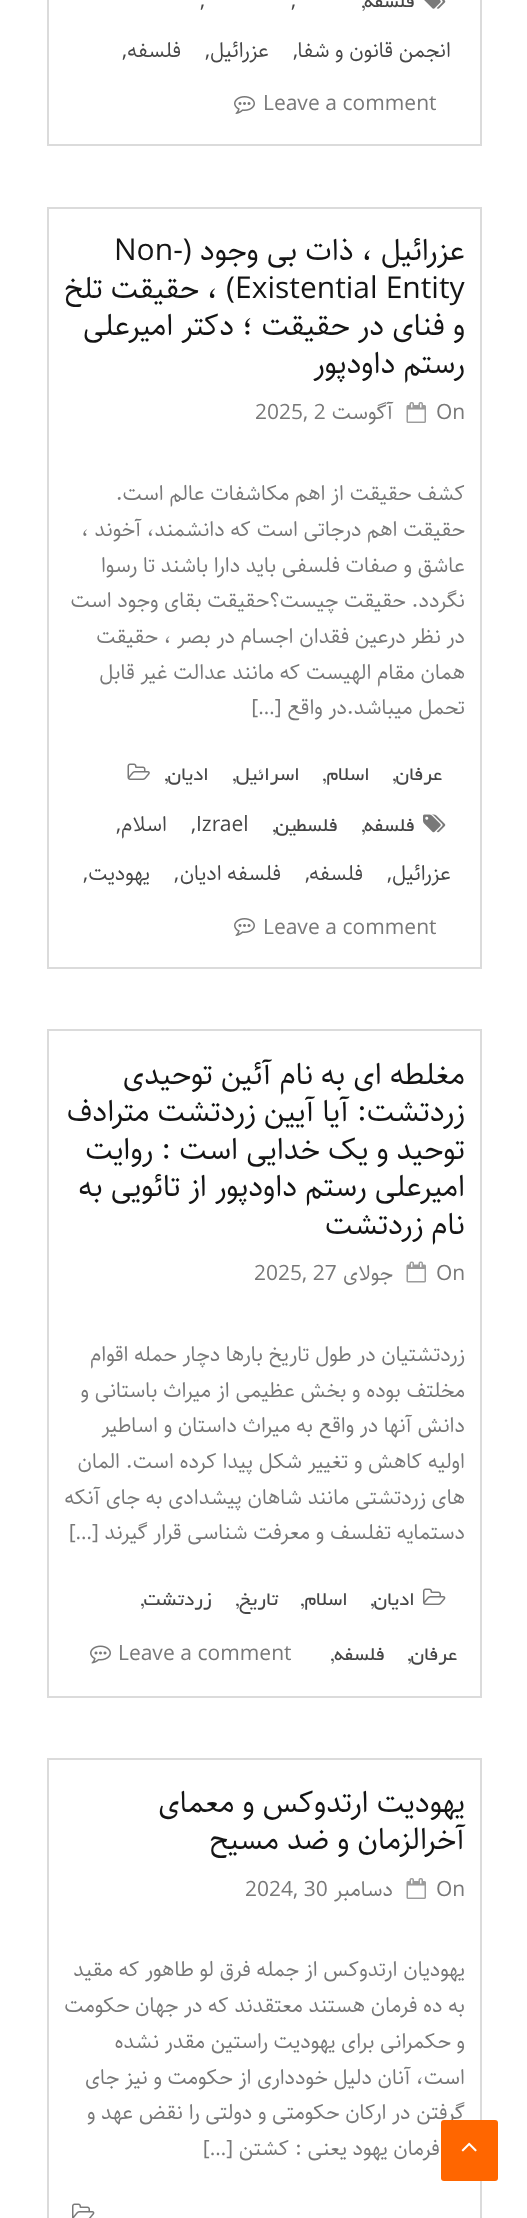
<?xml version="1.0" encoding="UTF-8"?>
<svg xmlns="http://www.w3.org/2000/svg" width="527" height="2218">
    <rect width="100%" height="100%" fill="#FFFFFF"/>
    <rect x="48" y="1759" width="433" height="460" fill="none" stroke="#DBDBDB" stroke-width="2"/>
    <text font-family="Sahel" font-size="21" direction="rtl" fill="#787878">
        <tspan x="465" y="2119">گرفتن در ارکان حکومتی و دولتی را نقض عهد و</tspan>
        <tspan x="465" y="2155">ده فرمان یهود یعنی : کشتن […]</tspan>
    </text>
    <rect x="441" y="2120" width="57" height="61" rx="3" fill="#FF6600"/>
    <image x="461" y="2142" width="16" height="10" href="img_01.png"/>
    <rect x="48" y="-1" width="433" height="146" fill="none" stroke="#DBDBDB" stroke-width="2"/>
    <text x="415" y="7" font-family="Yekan" font-size="21" direction="rtl" fill="#474747">فلسفه</text>
    <text x="362" y="7" font-family="Yekan" font-size="21" fill="#474747">,</text>
    <image x="424" y="0" width="22" height="9" href="img_02.png"/>
    <text x="291" y="7" font-family="Sahel" font-size="21" fill="#474747">,</text>
    <text x="200" y="7" font-family="Sahel" font-size="21" fill="#474747">,</text>
    <text x="451" y="57" font-family="Sahel" font-size="21" direction="rtl" fill="#474747">انجمن قانون و شفا</text>
    <text x="293" y="57" font-family="Sahel" font-size="21" fill="#474747">,</text>
    <text x="269" y="57" font-family="Sahel" font-size="21" direction="rtl" fill="#474747">عزرائیل</text>
    <text x="205" y="57" font-family="Sahel" font-size="21" fill="#474747">,</text>
    <text x="181" y="57" font-family="Sahel" font-size="21" direction="rtl" fill="#474747">فلسفه</text>
    <text x="122" y="57" font-family="Sahel" font-size="21" fill="#474747">,</text>
    <text x="263" y="110" font-family="Sahel" font-size="21" fill="#787878">Leave a comment</text>
    <image x="234" y="96" width="21" height="18" href="img_03.png"/>
    <rect x="48" y="208" width="433" height="760" fill="none" stroke="#DBDBDB" stroke-width="2"/>
    <text x="465" y="260" font-family="Sahel" font-size="30" direction="rtl" fill="#151515">عزرائیل ، ذات بی وجود (</text>
    <text x="114" y="260" font-family="Sahel" font-size="30" fill="#151515">Non-</text>
    <text x="235" y="298" font-family="Sahel" font-size="30" fill="#151515">Existential Entity</text>
    <text x="235" y="298" font-family="Sahel" font-size="30" direction="rtl" fill="#151515">) ، حقیقت تلخ</text>
    <text font-family="Sahel" font-size="30" direction="rtl" fill="#151515">
        <tspan x="465" y="335">و فنای در حقیقت ؛ دکتر امیرعلی</tspan>
        <tspan x="465" y="373">رستم داودپور</tspan>
    </text>
    <text x="436" y="419" font-family="Sahel" font-size="21" fill="#787878">On</text>
    <image x="406" y="402" width="20" height="21" href="img_04.png"/>
    <text x="393" y="419" font-family="Sahel" font-size="21" direction="rtl" fill="#787878">آگوست</text>
    <text x="255" y="419" font-family="Sahel" font-size="21" fill="#787878">2025, 2</text>
    <text font-family="Sahel" font-size="21" direction="rtl" fill="#787878">
        <tspan x="465" y="500">کشف حقیقت از اهم مکاشفات عالم است.</tspan>
        <tspan x="465" y="536">حقیقت اهم درجاتی است که دانشمند، آخوند ،</tspan>
        <tspan x="465" y="572">عاشق و صفات فلسفی باید دارا باشند تا رسوا</tspan>
        <tspan x="465" y="607">نگردد. حقیقت چیست؟حقیقت بقای وجود است</tspan>
        <tspan x="465" y="643">در نظر درعین فقدان اجسام در بصر ، حقیقت</tspan>
        <tspan x="465" y="679">همان مقام الهیست که مانند عدالت غیر قابل</tspan>
        <tspan x="465" y="714">تحمل میباشد.در واقع […]</tspan>
    </text>
    <text x="442" y="780" font-family="Yekan" font-size="21" direction="rtl" fill="#474747">عرفان</text>
    <text x="393" y="780" font-family="Yekan" font-size="21" fill="#474747">,</text>
    <text x="370" y="780" font-family="Yekan" font-size="21" direction="rtl" fill="#474747">اسلام</text>
    <text x="323" y="780" font-family="Yekan" font-size="21" fill="#474747">,</text>
    <text x="300" y="780" font-family="Yekan" font-size="21" direction="rtl" fill="#474747">اسرائیل</text>
    <text x="233" y="780" font-family="Yekan" font-size="21" fill="#474747">,</text>
    <text x="209" y="780" font-family="Yekan" font-size="21" direction="rtl" fill="#474747">ادیان</text>
    <text x="165" y="780" font-family="Yekan" font-size="21" fill="#474747">,</text>
    <image x="127" y="763" width="23" height="17" href="img_05.png"/>
    <text x="415" y="831" font-family="Yekan" font-size="21" direction="rtl" fill="#474747">فلسفه</text>
    <text x="362" y="831" font-family="Yekan" font-size="21" fill="#474747">,</text>
    <text x="338" y="831" font-family="Yekan" font-size="21" direction="rtl" fill="#474747">فلسطین</text>
    <text x="273" y="831" font-family="Yekan" font-size="21" fill="#474747">,</text>
    <image x="423" y="814" width="23" height="19" href="img_06.png"/>
    <text x="196" y="831" font-family="Sahel" font-size="21" fill="#474747">Izrael</text>
    <text x="191" y="831" font-family="Sahel" font-size="21" fill="#474747">,</text>
    <text x="167" y="831" font-family="Sahel" font-size="21" direction="rtl" fill="#474747">اسلام</text>
    <text x="116" y="831" font-family="Sahel" font-size="21" fill="#474747">,</text>
    <text x="451" y="880" font-family="Sahel" font-size="21" direction="rtl" fill="#474747">عزرائیل</text>
    <text x="387" y="880" font-family="Sahel" font-size="21" fill="#474747">,</text>
    <text x="363" y="880" font-family="Sahel" font-size="21" direction="rtl" fill="#474747">فلسفه</text>
    <text x="305" y="880" font-family="Sahel" font-size="21" fill="#474747">,</text>
    <text x="281" y="880" font-family="Sahel" font-size="21" direction="rtl" fill="#474747">فلسفه ادیان</text>
    <text x="174" y="880" font-family="Sahel" font-size="21" fill="#474747">,</text>
    <text x="150" y="880" font-family="Sahel" font-size="21" direction="rtl" fill="#474747">یهودیت</text>
    <text x="83" y="880" font-family="Sahel" font-size="21" fill="#474747">,</text>
    <text x="263" y="934" font-family="Sahel" font-size="21" fill="#787878">Leave a comment</text>
    <image x="234" y="918" width="21" height="18" href="img_03.png"/>
    <rect x="48" y="1030" width="433" height="667" fill="none" stroke="#DBDBDB" stroke-width="2"/>
    <text font-family="Sahel" font-size="30" direction="rtl" fill="#151515">
        <tspan x="465" y="1084">مغلطه ای به نام آئین توحیدی</tspan>
        <tspan x="465" y="1121">زردتشت: آیا آیین زردتشت مترادف</tspan>
        <tspan x="465" y="1159">توحید و یک خدایی است : روایت</tspan>
        <tspan x="465" y="1196">امیرعلی رستم داودپور از تائویی به</tspan>
        <tspan x="465" y="1234">نام زردتشت</tspan>
    </text>
    <text x="436" y="1280" font-family="Sahel" font-size="21" fill="#787878">On</text>
    <image x="406" y="1261" width="20" height="22" href="img_07.png"/>
    <text x="393" y="1280" font-family="Sahel" font-size="21" direction="rtl" fill="#787878">جولای</text>
    <text x="254" y="1280" font-family="Sahel" font-size="21" fill="#787878">2025, 27</text>
    <text font-family="Sahel" font-size="21" direction="rtl" fill="#787878">
        <tspan x="465" y="1361">زردتشتیان در طول تاریخ بارها دچار حمله اقوام</tspan>
        <tspan x="465" y="1397">مخلتف بوده و بخش عظیمی از میراث باستانی و</tspan>
        <tspan x="465" y="1432">دانش آنها در واقع به میراث داستان و اساطیر</tspan>
        <tspan x="465" y="1468">اولیه کاهش و تغییر شکل پیدا کرده است. المان</tspan>
        <tspan x="465" y="1504">های زردتشتی مانند شاهان پیشدادی به جای آنکه</tspan>
        <tspan x="465" y="1539">دستمایه تفلسف و معرفت شناسی قرار گیرند […]</tspan>
    </text>
    <image x="423" y="1588" width="23" height="17" href="img_08.png"/>
    <text x="415" y="1605" font-family="Yekan" font-size="21" direction="rtl" fill="#474747">ادیان</text>
    <text x="371" y="1605" font-family="Yekan" font-size="21" fill="#474747">,</text>
    <text x="348" y="1605" font-family="Yekan" font-size="21" direction="rtl" fill="#474747">اسلام</text>
    <text x="301" y="1605" font-family="Yekan" font-size="21" fill="#474747">,</text>
    <text x="278" y="1605" font-family="Yekan" font-size="21" direction="rtl" fill="#474747">تاریخ</text>
    <text x="236" y="1605" font-family="Yekan" font-size="21" fill="#474747">,</text>
    <text x="212" y="1605" font-family="Yekan" font-size="21" direction="rtl" fill="#474747">زردتشت</text>
    <text x="141" y="1605" font-family="Yekan" font-size="21" fill="#474747">,</text>
    <text x="457" y="1660" font-family="Yekan" font-size="21" direction="rtl" fill="#474747">عرفان</text>
    <text x="408" y="1660" font-family="Yekan" font-size="21" fill="#474747">,</text>
    <text x="385" y="1660" font-family="Yekan" font-size="21" direction="rtl" fill="#474747">فلسفه</text>
    <text x="331" y="1660" font-family="Yekan" font-size="21" fill="#474747">,</text>
    <text x="118" y="1660" font-family="Sahel" font-size="21" fill="#787878">Leave a comment</text>
    <image x="90" y="1645" width="21" height="19" href="img_09.png"/>
    <text font-family="Sahel" font-size="30" direction="rtl" fill="#151515">
        <tspan x="465" y="1812">یهودیت ارتدوکس و معمای</tspan>
        <tspan x="465" y="1849">آخرالزمان و ضد مسیح</tspan>
    </text>
    <text x="436" y="1896" font-family="Sahel" font-size="21" fill="#787878">On</text>
    <image x="406" y="1878" width="20" height="21" href="img_04.png"/>
    <text x="393" y="1896" font-family="Sahel" font-size="21" direction="rtl" fill="#787878">دسامبر</text>
    <text x="245" y="1896" font-family="Sahel" font-size="21" fill="#787878">2024, 30</text>
    <text font-family="Sahel" font-size="21" direction="rtl" fill="#787878">
        <tspan x="465" y="1976">یهودیان ارتدوکس از جمله فرق لو طاهور که مقید</tspan>
        <tspan x="465" y="2012">به ده فرمان هستند معتقدند که در جهان حکومت</tspan>
        <tspan x="465" y="2048">و حکمرانی برای یهودیت راستین مقدر نشده</tspan>
        <tspan x="465" y="2084">است، آنان دلیل خودداری از حکومت و نیز جای</tspan>
    </text>
    <image x="72" y="2203" width="23" height="15" href="img_10.png"/>
</svg>
